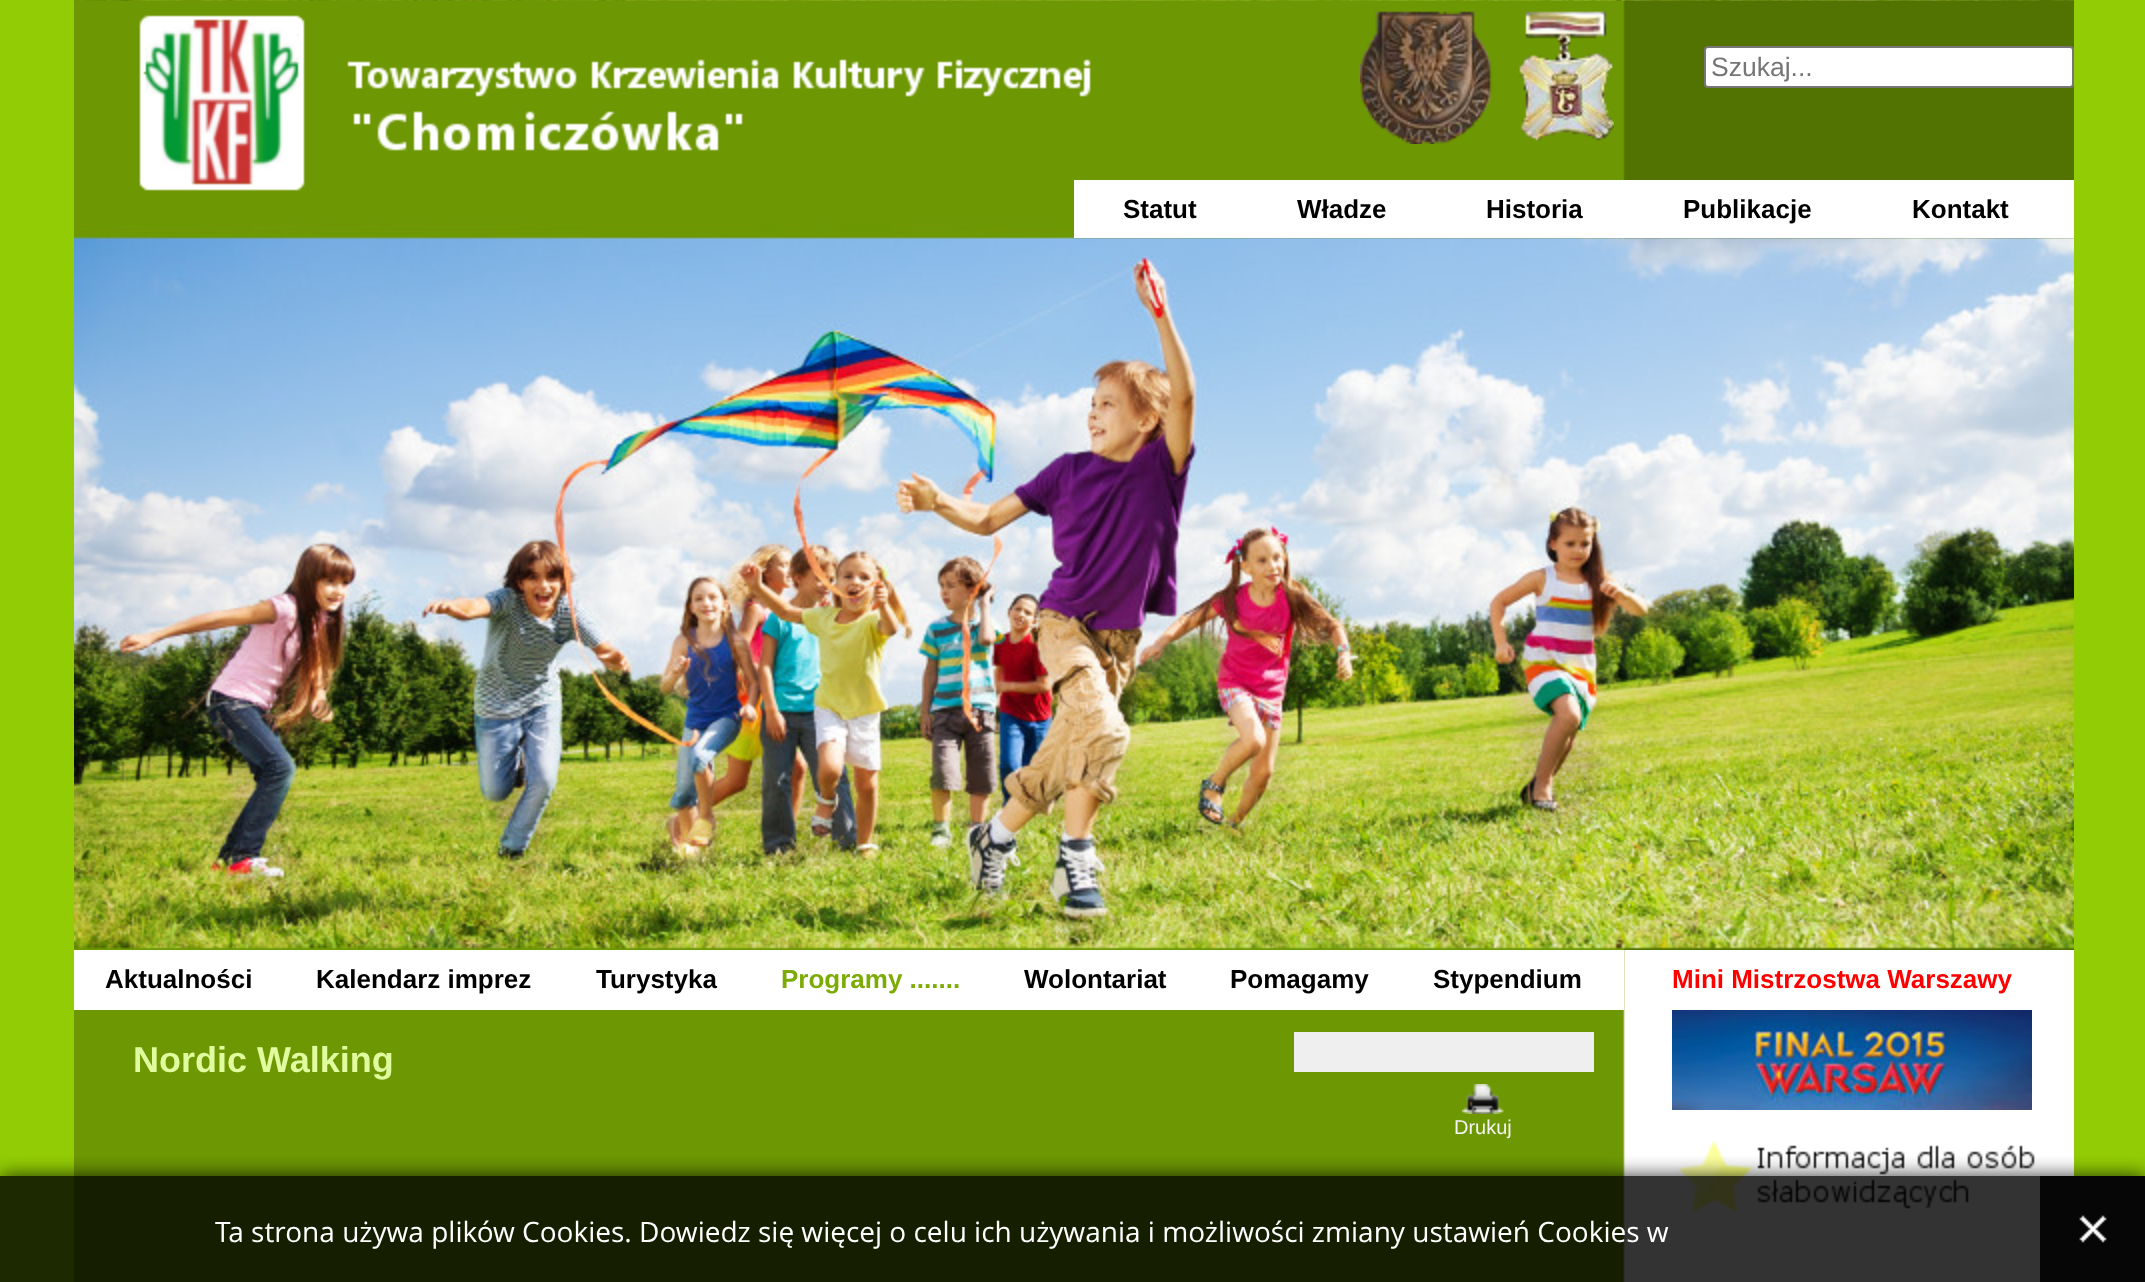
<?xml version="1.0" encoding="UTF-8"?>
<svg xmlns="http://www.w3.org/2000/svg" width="2145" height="1282">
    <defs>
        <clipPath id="clip1"><rect x="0" y="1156" width="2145" height="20"/></clipPath>
        <filter id="blur1" x="-50%" y="-200%" width="200%" height="500%"><feGaussianBlur stdDeviation="10"/></filter>
    </defs>
    <rect width="100%" height="100%" fill="#92CC04"/>
    <image x="74" y="0" width="2000" height="950" href="img_01.png"/>
    <image x="139" y="15" width="166" height="176" href="img_02.png"/>
    <image x="347" y="59" width="744" height="92" href="img_03.png"/>
    <image x="1360" y="11" width="254" height="133" href="img_04.png"/>
    <rect x="1705" y="47" width="368" height="40" rx="3" fill="#FFFFFF" stroke="#767676" stroke-width="2"/>
    <text x="1711" y="76" font-family="Liberation Sans" font-size="26.5" fill="#757575">Szukaj...</text>
    <rect x="1074" y="180" width="1000" height="58" fill="#FFFFFF"/>
    <text x="1123" y="218" font-family="Liberation Sans" font-size="26" font-weight="700" fill="#000000">Statut</text>
    <text x="1297" y="218" font-family="Liberation Sans" font-size="26" font-weight="700" fill="#000000">Władze</text>
    <text x="1486" y="218" font-family="Liberation Sans" font-size="26" font-weight="700" fill="#000000">Historia</text>
    <text x="1683" y="218" font-family="Liberation Sans" font-size="26" font-weight="700" fill="#000000">Publikacje</text>
    <text x="1912" y="218" font-family="Liberation Sans" font-size="26" font-weight="700" fill="#000000">Kontakt</text>
    <image x="74" y="950" width="2000" height="332" href="img_05.png"/>
    <rect x="74" y="950" width="1550" height="60" fill="#FFFFFF"/>
    <text x="105" y="988" font-family="Liberation Sans" font-size="26" font-weight="700" fill="#000000">Aktualności</text>
    <text x="316" y="988" font-family="Liberation Sans" font-size="26" font-weight="700" fill="#000000">Kalendarz imprez</text>
    <text x="596" y="988" font-family="Liberation Sans" font-size="26" font-weight="700" fill="#000000">Turystyka</text>
    <text x="781" y="988" font-family="Liberation Sans" font-size="26" font-weight="700" fill="#7CAB03">Programy .......</text>
    <text x="1024" y="988" font-family="Liberation Sans" font-size="26" font-weight="700" fill="#000000">Wolontariat</text>
    <text x="1230" y="988" font-family="Liberation Sans" font-size="26" font-weight="700" fill="#000000">Pomagamy</text>
    <text x="1433" y="988" font-family="Liberation Sans" font-size="26" font-weight="700" fill="#000000">Stypendium</text>
    <text x="1672" y="988" font-family="Liberation Sans" font-size="26" font-weight="700" fill="#FF0000">Mini Mistrzostwa Warszawy</text>
    <text x="133" y="1072" font-family="Liberation Sans" font-size="36" font-weight="700" fill="#E1FB9F">Nordic Walking</text>
    <rect x="1294" y="1032" width="300" height="40" fill="#EFEFEF"/>
    <image x="1462" y="1084" width="42" height="30" href="img_06.png"/>
    <text x="1454" y="1134" font-family="Liberation Sans" font-size="20" fill="#F4F4F4">Drukuj</text>
    <image x="1672" y="1010" width="360" height="100" href="img_07.png"/>
    <image x="1678" y="1140" width="357" height="73" href="img_08.png"/>
    <g clip-path="url(#clip1)">
        <rect x="0" y="1176" width="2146" height="106" fill="#000000" fill-opacity="0.8" filter="url(#blur1)"/>
    </g>
    <rect x="0" y="1176" width="2040" height="106" fill="#000000" fill-opacity="0.8"/>
    <text x="215" y="1242" font-family="Open Sans" font-size="28" fill="#FFFFFF">Ta strona używa plików Cookies. Dowiedz się więcej o celu ich używania i możliwości zmiany ustawień Cookies w</text>
    <rect x="2040" y="1176" width="105" height="106" fill="#060606"/>
    <image x="2079" y="1215" width="28" height="28" href="img_09.png"/>
</svg>
